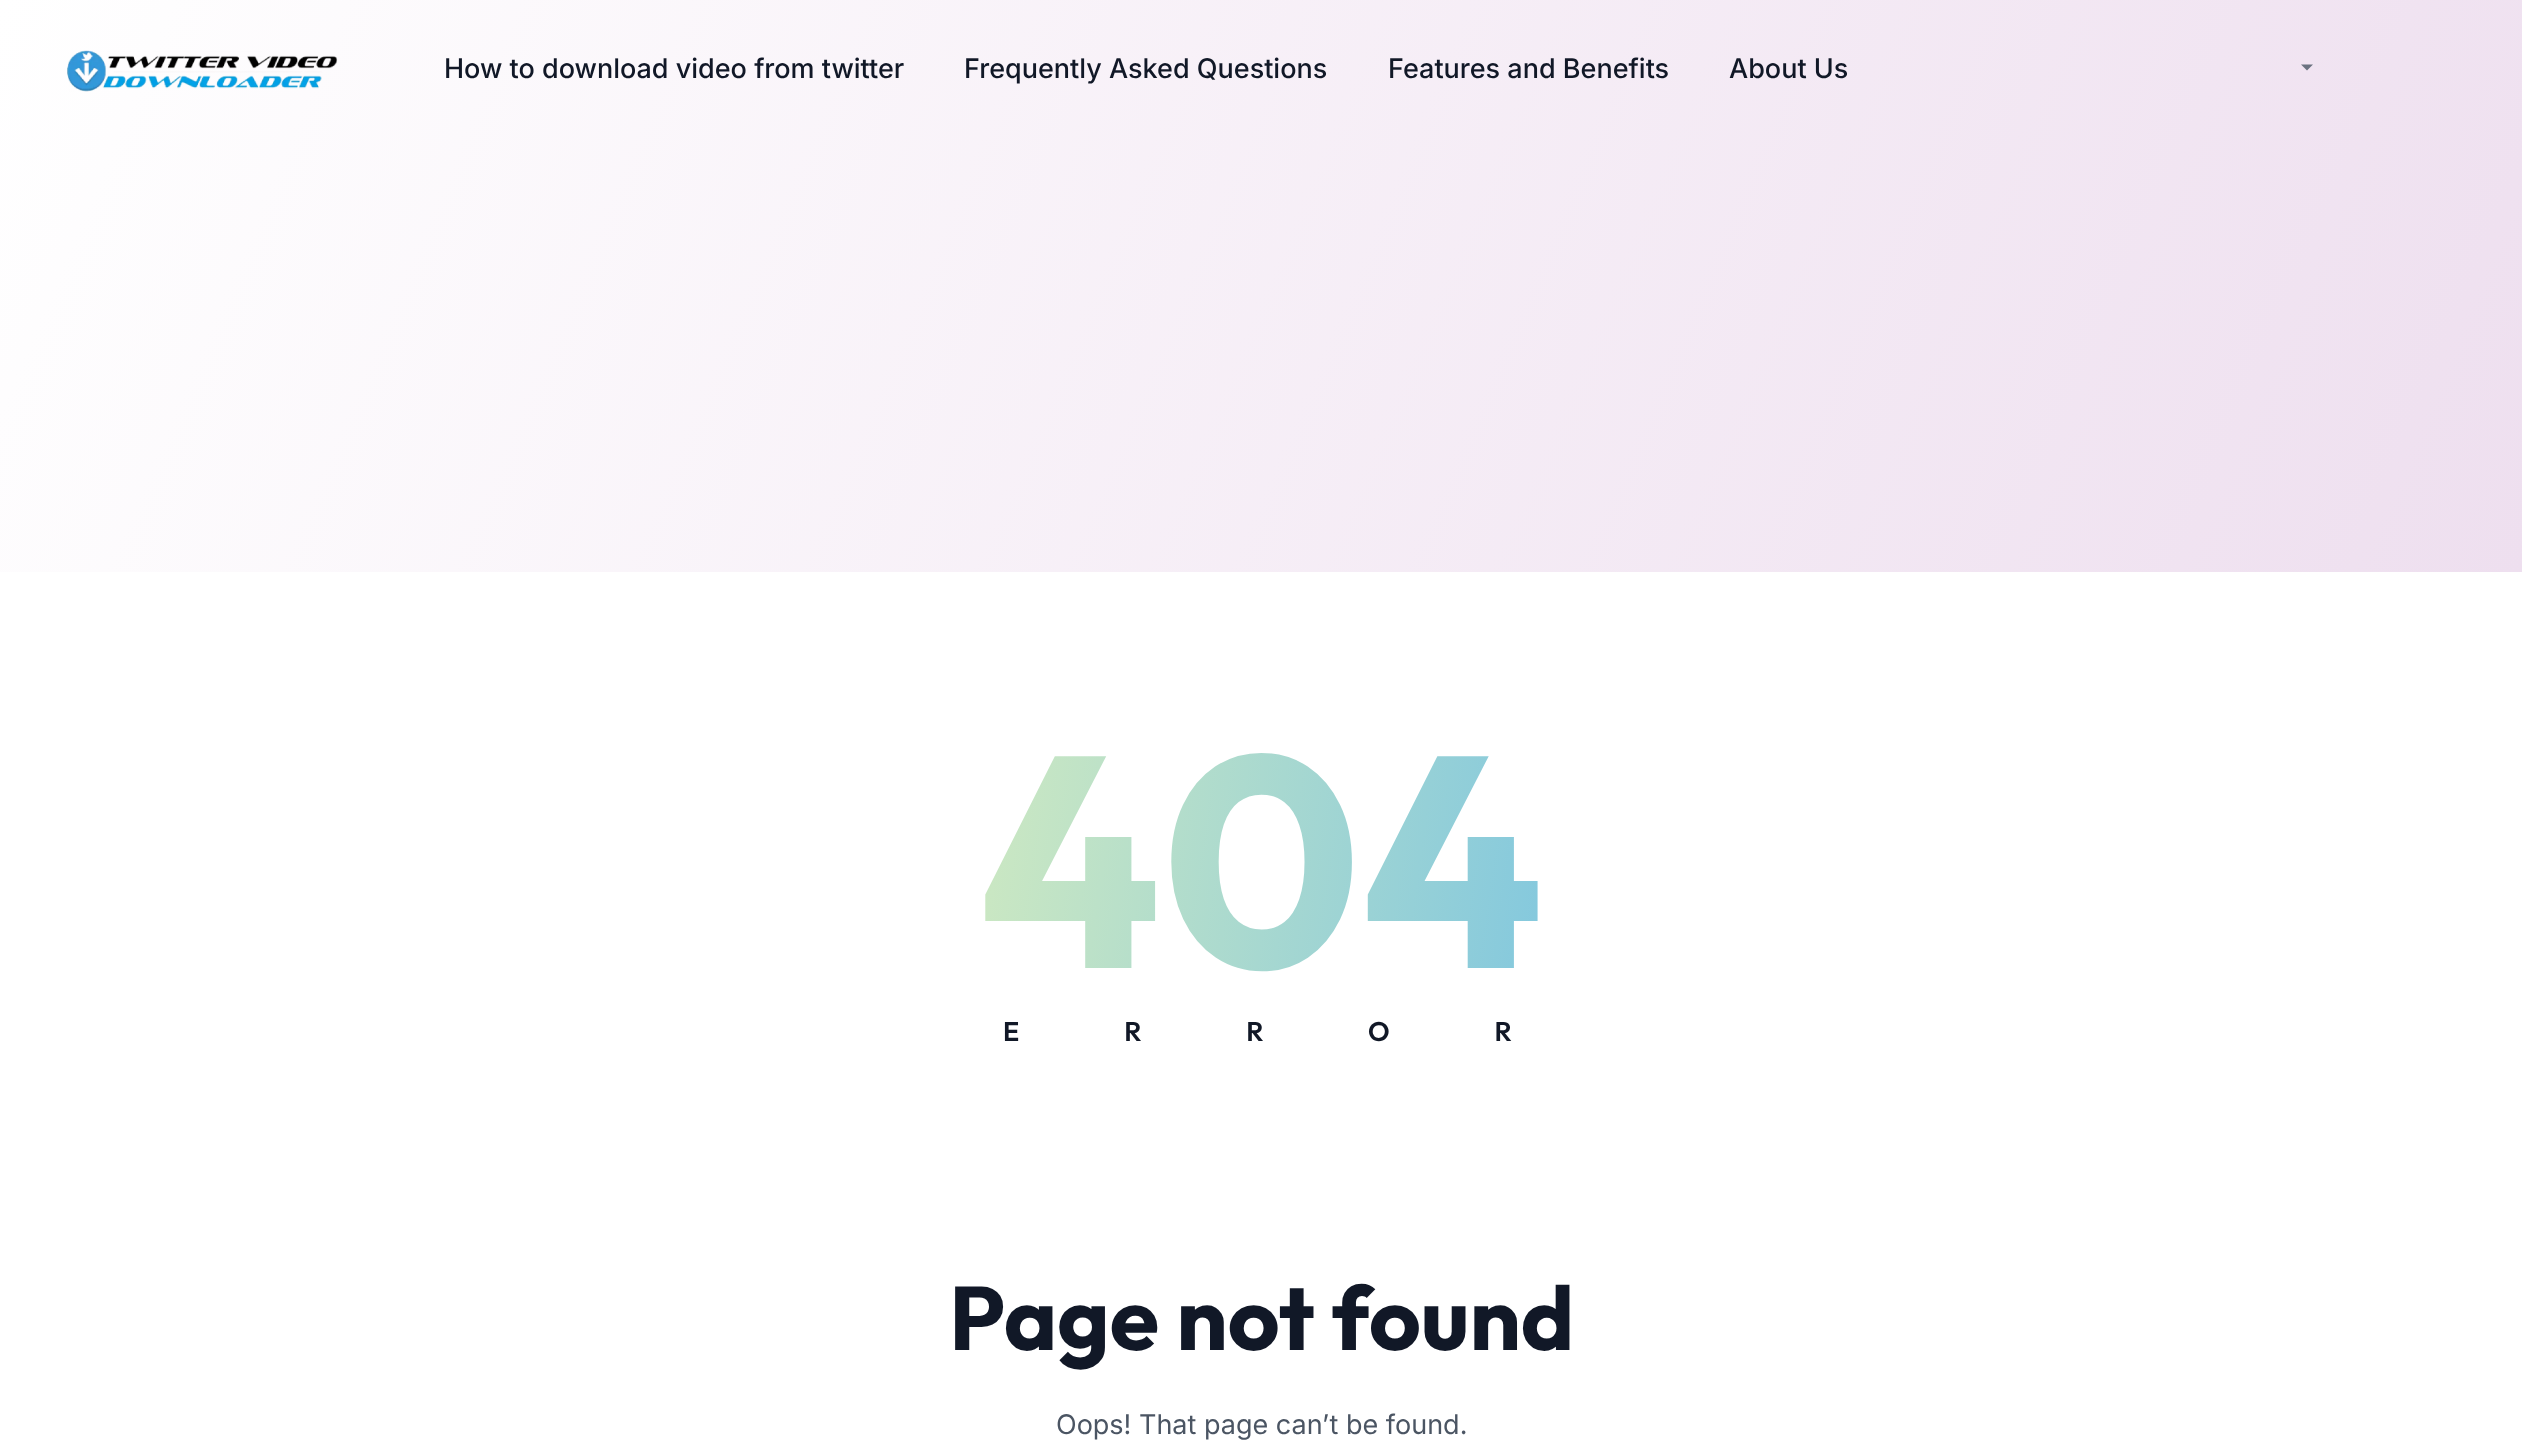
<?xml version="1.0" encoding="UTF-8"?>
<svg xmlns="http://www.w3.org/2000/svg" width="2522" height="1450">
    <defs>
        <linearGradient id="g1" gradientUnits="userSpaceOnUse" x1="963" y1="813" x2="1560" y2="900"><stop offset="0" stop-color="#CEE9C1"/><stop offset="1" stop-color="#83C8DE"/></linearGradient>
        <linearGradient id="g2" gradientUnits="userSpaceOnUse" x1="88" y1="-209" x2="2435" y2="780"><stop offset="0" stop-color="#FFFFFF"/><stop offset="1" stop-color="#EEDFEF"/></linearGradient>
    </defs>
    <rect width="100%" height="100%" fill="#FFFFFF"/>
    <rect x="0" y="0" width="2522" height="572" fill="url(#g2)"/>
    <image x="67" y="50" width="271" height="42" href="img_01.png"/>
    <text x="444" y="78" font-family="Inter" font-size="27" font-weight="500" fill="#111827">How to download video from twitter</text>
    <text x="964" y="78" font-family="Inter" font-size="27" font-weight="500" fill="#111827">Frequently Asked Questions</text>
    <text x="1388" y="78" font-family="Inter" font-size="27" font-weight="500" fill="#111827">Features and Benefits</text>
    <text x="1729" y="78" font-family="Inter" font-size="27" font-weight="500" fill="#111827">About Us</text>
    <path d="M 2301 64.5 H 2313 L 2307 70.5 Z" fill="#6B7280"/>
    <text x="979" y="968" font-family="Outfit" font-size="300" font-weight="700" fill="url(#g1)">404</text>
    <text x="1003" y="1041" font-family="Outfit" font-size="27" font-weight="600" letter-spacing="105" fill="#111827">ERROR</text>
    <text x="949" y="1350" font-family="Outfit" font-size="90" font-weight="700" fill="#111827">Page not found</text>
    <text x="1056" y="1434" font-family="Inter" font-size="27" fill="#4B5563">Oops! That page can’t be found.</text>
</svg>
